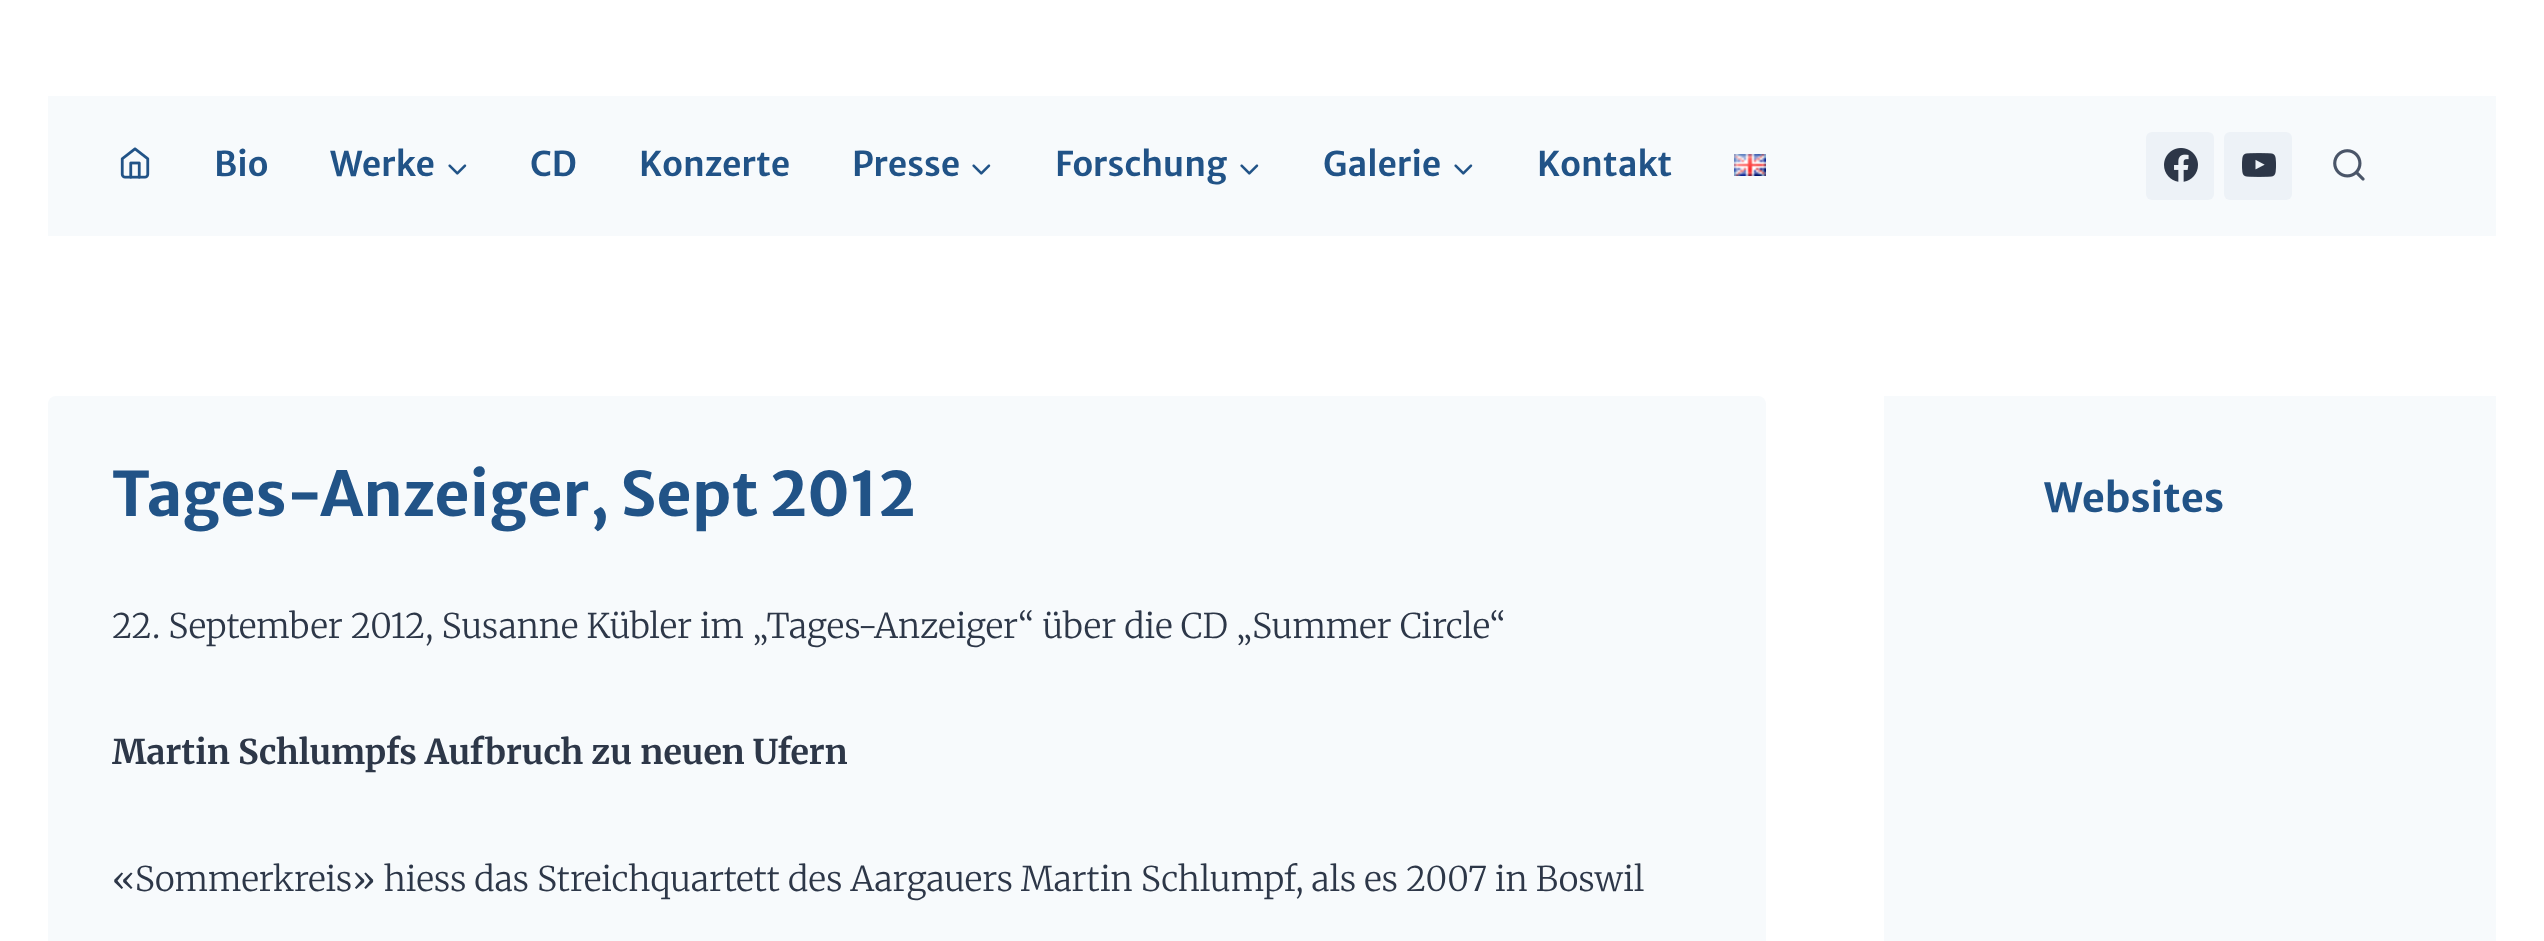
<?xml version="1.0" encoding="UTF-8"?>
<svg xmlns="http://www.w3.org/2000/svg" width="2544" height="941">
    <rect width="100%" height="100%" fill="#FFFFFF"/>
    <rect x="48" y="96" width="2448" height="140" fill="#F7FAFC"/>
    <image x="120" y="147" width="30" height="32" href="img_01.png"/>
    <text x="214" y="176" font-family="Merriweather Sans" font-size="34" font-weight="600" fill="#215387">Bio</text>
    <text x="330" y="176" font-family="Merriweather Sans" font-size="34" font-weight="600" fill="#215387">Werke</text>
    <image x="448" y="164" width="19" height="11" href="img_02.png"/>
    <text x="530" y="176" font-family="Merriweather Sans" font-size="34" font-weight="600" fill="#215387">CD</text>
    <text x="639" y="176" font-family="Merriweather Sans" font-size="34" font-weight="600" fill="#215387">Konzerte</text>
    <text x="852" y="176" font-family="Merriweather Sans" font-size="34" font-weight="600" fill="#215387">Presse</text>
    <image x="972" y="164" width="19" height="11" href="img_02.png"/>
    <text x="1055" y="176" font-family="Merriweather Sans" font-size="34" font-weight="600" fill="#215387">Forschung</text>
    <image x="1240" y="164" width="19" height="11" href="img_02.png"/>
    <text x="1323" y="176" font-family="Merriweather Sans" font-size="34" font-weight="600" fill="#215387">Galerie</text>
    <image x="1454" y="164" width="19" height="11" href="img_02.png"/>
    <text x="1537" y="176" font-family="Merriweather Sans" font-size="34" font-weight="600" fill="#215387">Kontakt</text>
    <image x="1734" y="154" width="32" height="22" href="img_03.png"/>
    <rect x="2146" y="132" width="68" height="68" rx="6" fill="#EDF2F7"/>
    <image x="2164" y="148" width="34" height="34" href="img_04.png"/>
    <rect x="2224" y="132" width="68" height="68" rx="6" fill="#EDF2F7"/>
    <image x="2242" y="153" width="34" height="24" href="img_05.png"/>
    <image x="2333" y="149" width="32" height="32" href="img_06.png"/>
    <rect x="48" y="396" width="1718" height="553" rx="8" fill="#F7FAFC"/>
    <text x="112" y="516" font-family="Merriweather Sans" font-size="61.25" font-weight="700" fill="#215387">Tages-Anzeiger, Sept 2012</text>
    <text x="112" y="638" font-family="Merriweather" font-size="34" font-weight="300" fill="#2D3748">22. September 2012, Susanne Kübler im „Tages-Anzeiger“ über die CD „Summer Circle“</text>
    <text x="112" y="764" font-family="Merriweather" font-size="34" font-weight="700" fill="#2D3748">Martin Schlumpfs Aufbruch zu neuen Ufern</text>
    <text x="112" y="891" font-family="Merriweather" font-size="34" font-weight="300" fill="#2D3748">«Sommerkreis» hiess das Streichquartett des Aargauers Martin Schlumpf, als es 2007 in Boswil</text>
    <rect x="1884" y="396" width="612" height="545" fill="#F7FAFC"/>
    <text x="2044" y="512" font-family="Merriweather Sans" font-size="40" font-weight="700" fill="#215387">Websites</text>
</svg>
